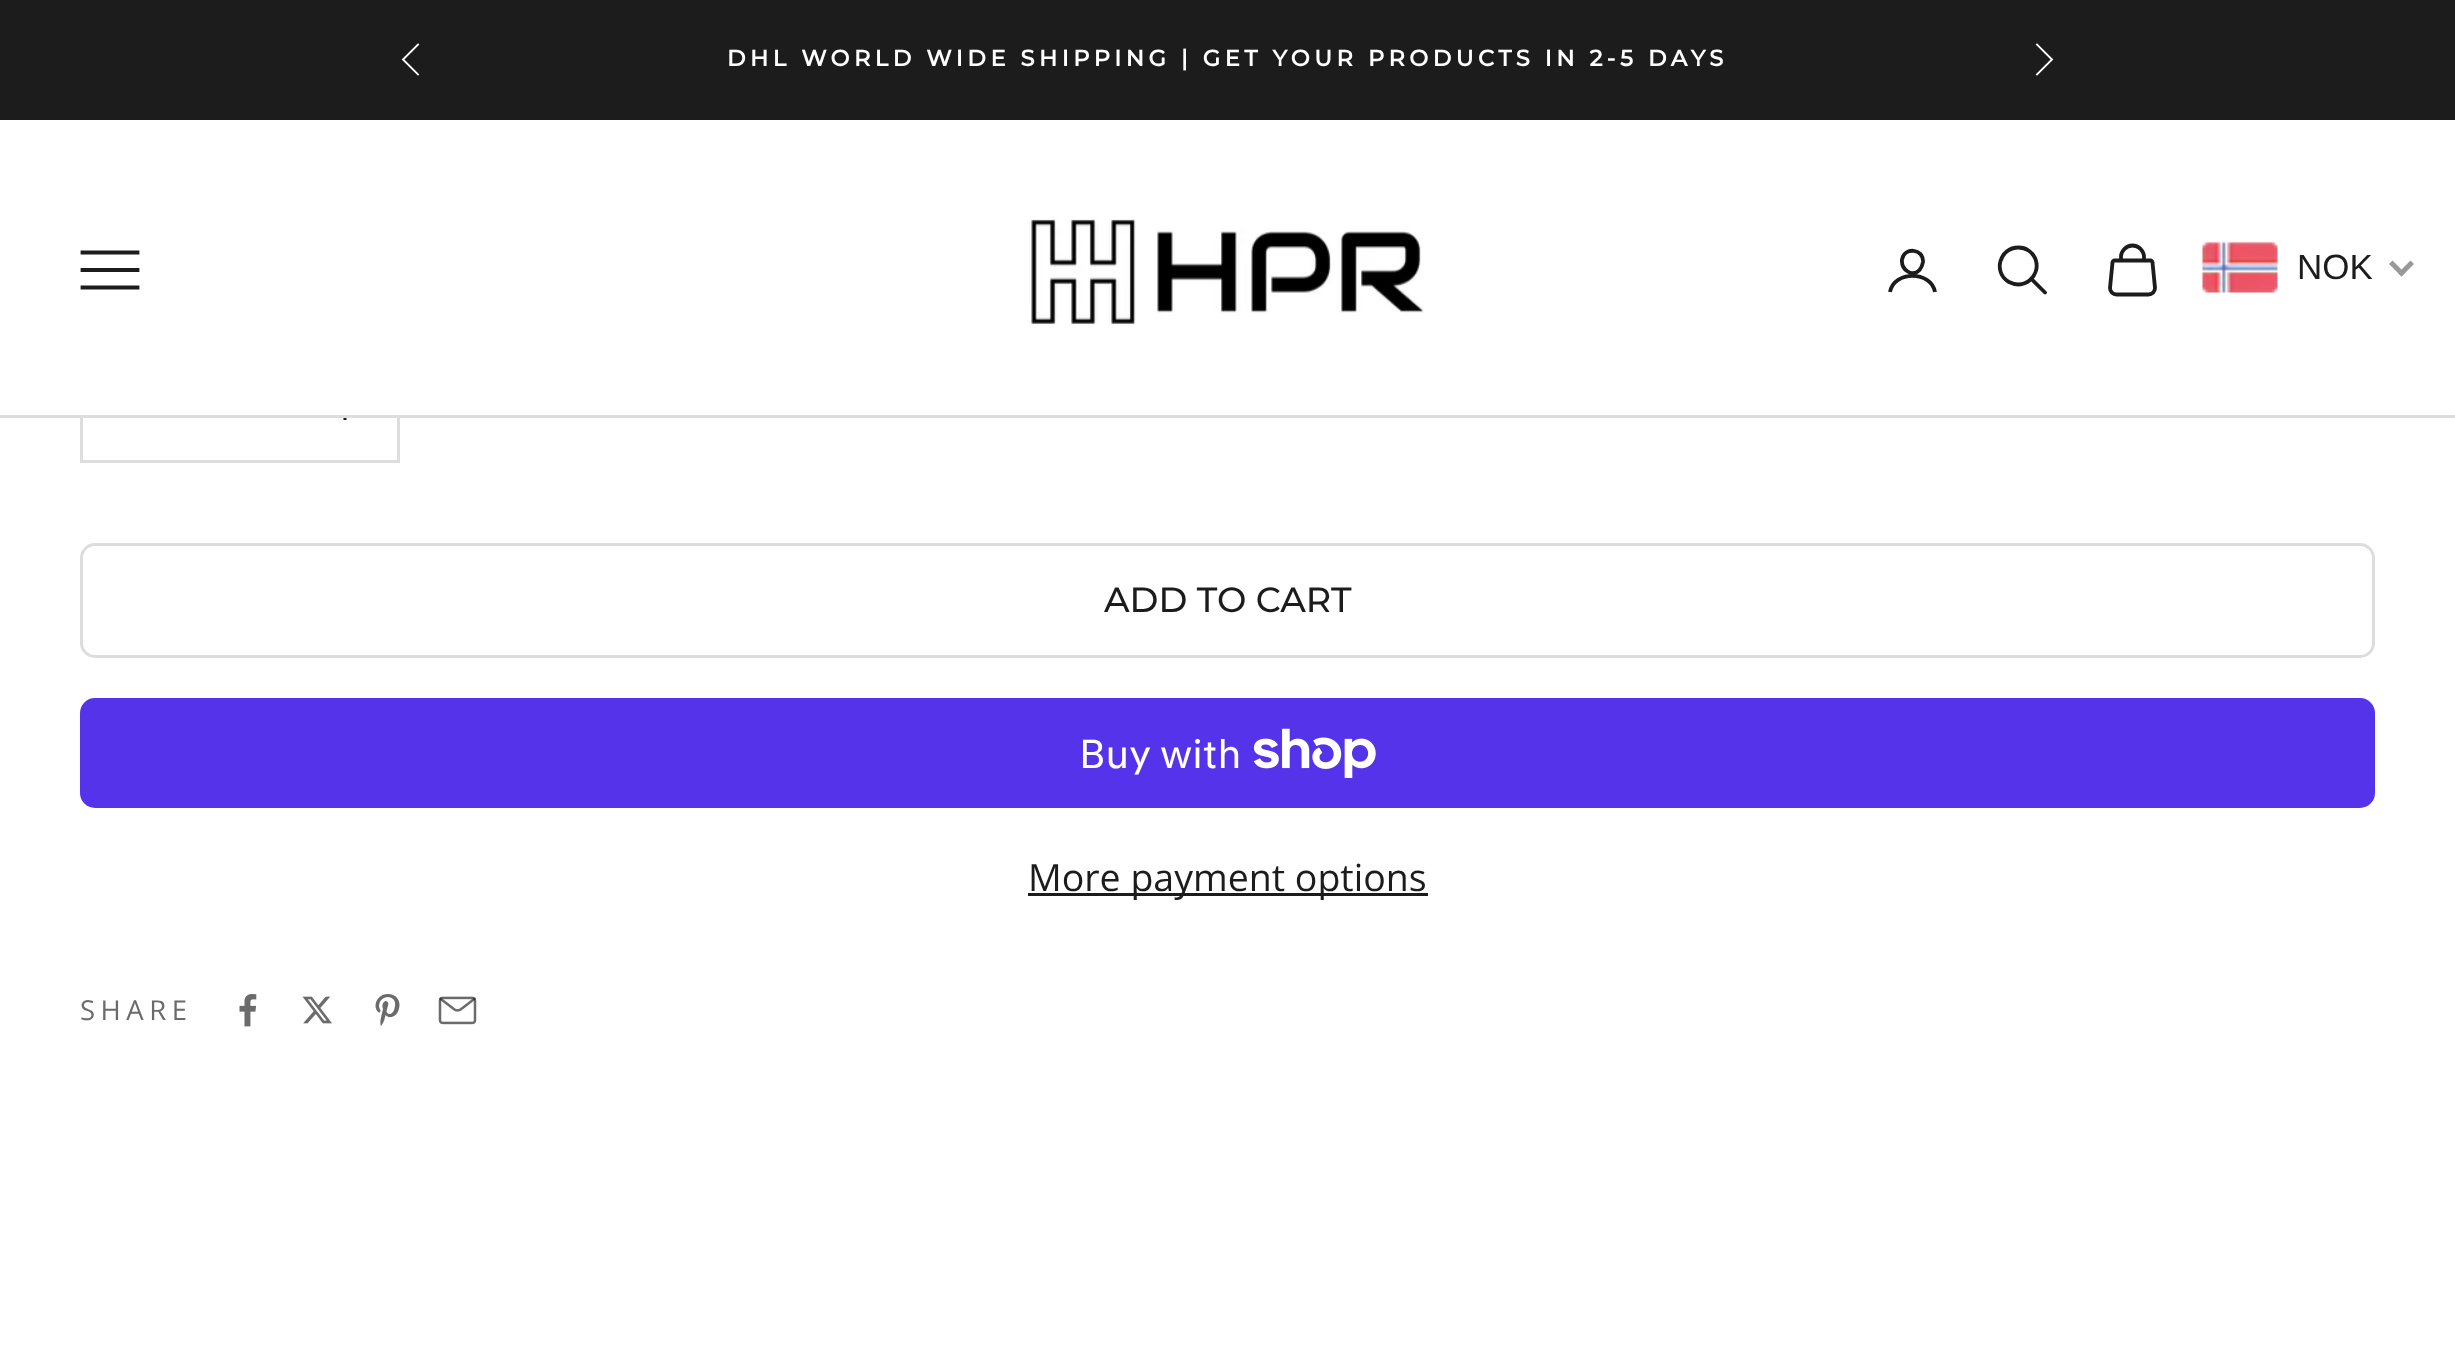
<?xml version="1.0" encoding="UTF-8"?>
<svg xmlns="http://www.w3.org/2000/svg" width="2455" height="1360">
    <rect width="100%" height="100%" fill="#FFFFFF"/>
    <rect x="0" y="0" width="2455" height="120" fill="#1C1C1C"/>
    <path d="M 418 44.5 L 403 59.5 L 418 74.5" fill="none" stroke="#FFFFFF" stroke-width="1.9" stroke-linecap="square"/>
    <text x="727" y="66" font-family="Montserrat" font-size="22.5" font-weight="700" letter-spacing="4.5" fill="#FFFFFF">DHL WORLD WIDE SHIPPING | GET YOUR PRODUCTS IN 2-5 DAYS</text>
    <path d="M 2037 74.5 L 2052 59.5 L 2037 44.5" fill="none" stroke="#FFFFFF" stroke-width="1.9" stroke-linecap="square"/>
    <rect x="81.5" y="351.5" width="317" height="110" fill="none" stroke="#DDDDDD" stroke-width="3"/>
    <path d="M 345 395 V 420 M 332.5 407.5 H 357.5" fill="none" stroke="#1C1C1C" stroke-width="3.1"/>
    <rect x="80" y="350" width="320" height="65" fill="#FFFFFF"/>
    <rect x="0" y="415" width="2455" height="3" fill="#DDDDDD"/>
    <path d="M 82.5 287.5 H 137.5 M 82.5 270 H 137.5 M 82.5 252.5 H 137.5" fill="none" stroke="#1C1C1C" stroke-width="3.8" stroke-linecap="square"/>
    <image x="1029" y="219" width="395" height="105" href="img_01.png"/>
    <path d="M 1923 262 C 1922.5 265 1921.5 267.5 1919.5 270 C 1911.5 278 1901 269 1902 259.5 C 1904 246.5 1924 248.5 1923 262 Z" fill="none" stroke="#1C1C1C" stroke-width="3.8" stroke-linecap="round" stroke-linejoin="round"/>
    <path d="M 1890 292 C 1894 270.5 1931 270.5 1935 292" fill="none" stroke="#1C1C1C" stroke-width="3.8"/>
    <path d="M 2018.5 247.5 C 1999.5 247.5 1992.5 272.5 2009 282 C 2012 283.5 2015 284.5 2018.5 284.5 C 2036.5 283.5 2043.5 261 2028.5 250.5 C 2025.5 248.5 2022 247.5 2018.5 247.5 Z" fill="none" stroke="#1C1C1C" stroke-width="3.8"/>
    <path d="M 2032 279.5 L 2045 292.5" fill="none" stroke="#1C1C1C" stroke-width="3.8" stroke-linecap="round"/>
    <path d="M 2114.5 260.5 C 2113.5 260.5 2112.5 261.5 2112.5 262.5 L 2110 288 C 2110 291.5 2113 294.5 2116.5 294.5 H 2148.5 C 2152 294.5 2155 291.5 2155 288 L 2152.5 262.5 C 2152.5 261.5 2151.5 260.5 2150.5 260.5 Z M 2121 260.5 V 257 C 2121 250.5 2126.5 245.5 2132.5 245.5 C 2138.5 245.5 2144 250.5 2144 257 V 260.5" fill="none" stroke="#1C1C1C" stroke-width="3.8" stroke-linecap="round" stroke-linejoin="round"/>
    <image x="2202" y="241" width="76" height="52" href="img_02.png"/>
    <text x="2297" y="279" font-family="Liberation Sans" font-size="35" fill="#1C1C1C">NOK</text>
    <path d="M 2410.5 260.5 L 2414 264 L 2401.5 276.5 L 2398 273 Z" fill="#999999"/>
    <path d="M 2392.5 260.5 L 2405 273 L 2401.5 276.5 L 2389 264 Z" fill="#999999"/>
    <rect x="81.5" y="544.5" width="2292" height="112" rx="13.5" fill="none" stroke="#DDDDDD" stroke-width="3"/>
    <text x="1104" y="612" font-family="Montserrat" font-size="35" font-weight="500" fill="#1C1C1C">ADD TO CART</text>
    <rect x="80" y="698" width="2295" height="110" rx="15" fill="#5433EB"/>
    <text x="1079" y="768" font-family="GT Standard" font-size="40" fill="#FFFFFF">Buy with</text>
    <image x="1253" y="728" width="123" height="50" href="img_03.png"/>
    <rect x="1028" y="893" width="400" height="3" fill="#1C1C1C"/>
    <text x="1028" y="891" font-family="Open Sans" font-size="37.5" fill="#1C1C1C">More payment options</text>
    <text x="80" y="1020" font-family="Open Sans" font-size="27.5" letter-spacing="5.5" fill="#6B6B6B">SHARE</text>
    <image x="239" y="994" width="18" height="33" href="img_04.png"/>
    <image x="302" y="996" width="30" height="28" href="img_05.png"/>
    <image x="375" y="994" width="25" height="32" href="img_06.png"/>
    <image x="438" y="996" width="39" height="29" href="img_07.png"/>
</svg>
